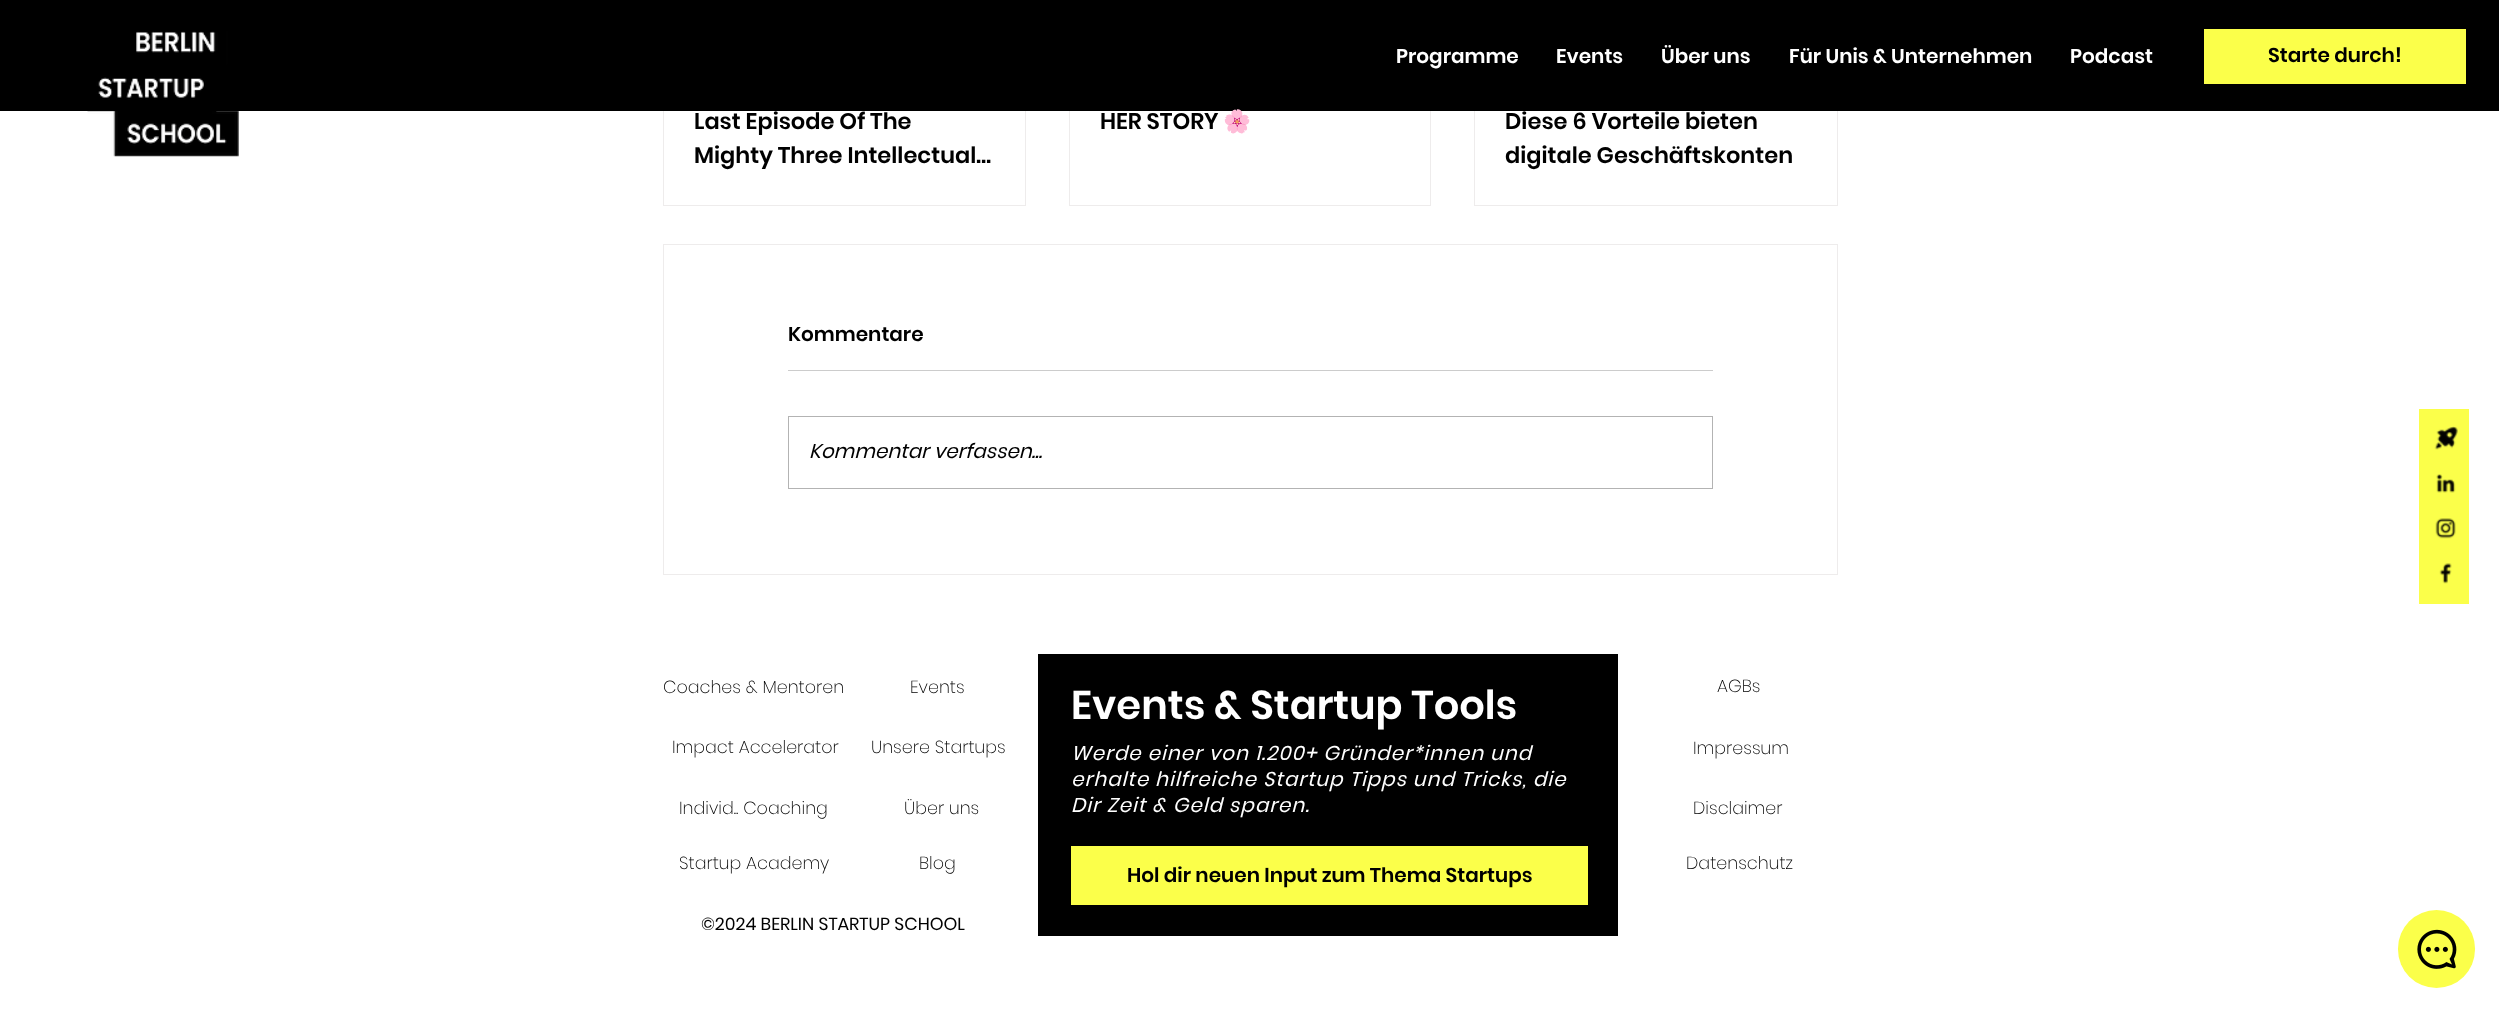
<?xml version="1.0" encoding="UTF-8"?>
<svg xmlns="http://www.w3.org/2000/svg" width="2499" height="1012">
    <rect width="100%" height="100%" fill="#FFFFFF"/>
    <rect x="663.5" y="-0.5" width="362" height="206" fill="none" stroke="#EEECEC"/>
    <rect x="1069.5" y="-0.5" width="361" height="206" fill="none" stroke="#EEECEC"/>
    <rect x="1474.5" y="-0.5" width="363" height="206" fill="none" stroke="#EEECEC"/>
    <rect x="0" y="0" width="2499" height="111" fill="#000000"/>
    <image x="87" y="31" width="152" height="126" href="img_01.png"/>
    <text x="1396" y="63" font-family="'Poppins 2'" font-size="20" font-weight="600" fill="#FFFFFF">Programme</text>
    <text x="1556" y="63" font-family="'Poppins 2'" font-size="20" font-weight="600" fill="#FFFFFF">Events</text>
    <text x="1661" y="63" font-family="'Poppins 2'" font-size="20" font-weight="600" fill="#FFFFFF">Über uns</text>
    <text x="1789" y="63" font-family="'Poppins 2'" font-size="20" font-weight="600" fill="#FFFFFF">Für Unis &amp; Unternehmen</text>
    <text x="2070" y="63" font-family="'Poppins 2'" font-size="20" font-weight="600" fill="#FFFFFF">Podcast</text>
    <rect x="2204" y="29" width="262" height="55" fill="#FBFF4A"/>
    <text x="2268" y="62" font-family="Poppins" font-size="20" font-weight="600" fill="#000000">Starte durch!</text>
    <text font-family="Poppins" font-size="22.5" font-weight="600" fill="#000000">
        <tspan x="694" y="129">Last Episode Of The</tspan>
        <tspan x="694" y="163">Mighty Three Intellectual…</tspan>
    </text>
    <text x="1100" y="129" font-family="Poppins" font-size="22.5" font-weight="600" fill="#000000">HER STORY</text>
    <text x="1223" y="129" font-family="Noto Color Emoji" font-size="22.5" fill="#000000">🌸</text>
    <text font-family="Poppins" font-size="22.5" font-weight="600" fill="#000000">
        <tspan x="1505" y="129">Diese 6 Vorteile bieten</tspan>
        <tspan x="1505" y="163">digitale Geschäftskonten</tspan>
    </text>
    <rect x="663.5" y="244.5" width="1174" height="330" fill="none" stroke="#EEECEC"/>
    <text x="788" y="341" font-family="Poppins" font-size="20" font-weight="600" fill="#000000">Kommentare</text>
    <rect x="788" y="370" width="925" height="1" fill="#CCCCCC"/>
    <rect x="788.5" y="416.5" width="924" height="72" fill="none" stroke="#B3B3B3"/>
    <text x="809" y="458" font-family="Poppins" font-size="20" font-style="italic" fill="#000000">Kommentar verfassen...</text>
    <rect x="2419" y="409" width="50" height="195" fill="#FBFF4A"/>
    <image x="2434" y="426" width="24" height="24" href="img_02.png"/>
    <image x="2436" y="474" width="20" height="19" href="img_03.png"/>
    <image x="2435" y="518" width="21" height="21" href="img_04.png"/>
    <image x="2439" y="563" width="13" height="21" href="img_05.png"/>
    <text x="663" y="693" font-family="Poppins" font-size="17.5" font-weight="200" fill="#000000">Coaches &amp; Mentoren</text>
    <text x="910" y="693" font-family="Poppins" font-size="17.5" font-weight="200" fill="#000000">Events</text>
    <text x="1717" y="692" font-family="Poppins" font-size="17.5" font-weight="200" fill="#000000">AGBs</text>
    <text x="672" y="753" font-family="Poppins" font-size="17.5" font-weight="200" fill="#000000">Impact Accelerator</text>
    <text x="871" y="753" font-family="Poppins" font-size="17.5" font-weight="200" fill="#000000">Unsere Startups</text>
    <rect x="1038" y="654" width="580" height="282" fill="#000000"/>
    <text x="1071" y="719" font-family="Poppins" font-size="40" font-weight="600" fill="#FFFFFF">Events &amp; Startup Tools</text>
    <text font-family="Poppins" font-size="20" font-style="italic" letter-spacing="1" fill="#FFFFFF">
        <tspan x="1071" y="760">Werde einer von 1.200+ Gründer*innen und</tspan>
        <tspan x="1071" y="786">erhalte hilfreiche Startup Tipps und Tricks, die</tspan>
        <tspan x="1071" y="812">Dir Zeit &amp; Geld sparen.</tspan>
    </text>
    <rect x="1071" y="846" width="517" height="59" fill="#FBFF4A"/>
    <text x="1127" y="882" font-family="Poppins" font-size="20" font-weight="600" fill="#000000">Hol dir neuen Input zum Thema Startups</text>
    <text x="1693" y="754" font-family="Poppins" font-size="17.5" font-weight="200" fill="#000000">Impressum</text>
    <text x="679" y="814" font-family="Poppins" font-size="17.5" font-weight="200" fill="#000000">Individ.. Coaching</text>
    <text x="904" y="814" font-family="Poppins" font-size="17.5" font-weight="200" fill="#000000">Über uns</text>
    <text x="1693" y="814" font-family="Poppins" font-size="17.5" font-weight="200" fill="#000000">Disclaimer</text>
    <text x="679" y="869" font-family="Poppins" font-size="17.5" font-weight="200" fill="#000000">Startup Academy</text>
    <text x="919" y="869" font-family="Poppins" font-size="17.5" font-weight="200" fill="#000000">Blog</text>
    <text x="1686" y="869" font-family="Poppins" font-size="17.5" font-weight="200" fill="#000000">Datenschutz</text>
    <text x="701" y="930" font-family="Poppins" font-size="17.5" fill="#000000">©2024 BERLIN STARTUP SCHOOL</text>
    <rect x="2398" y="910" width="77" height="78" rx="38.5" fill="#FBFF4A"/>
    <image x="2417" y="929" width="40" height="40" href="img_06.png"/>
</svg>
